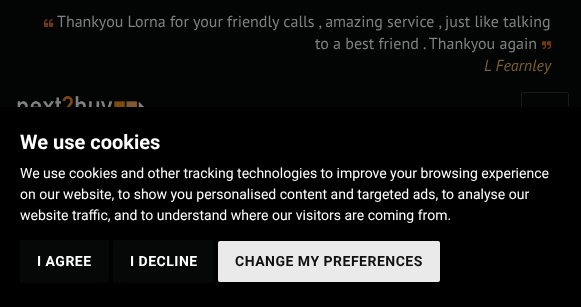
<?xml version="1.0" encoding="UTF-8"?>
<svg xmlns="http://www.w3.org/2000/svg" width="581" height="307">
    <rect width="100%" height="100%" fill="#030404"/>
    <image x="44" y="19" width="10" height="8" href="img_01.png"/>
    <text x="57" y="27" font-family="PT Sans" font-size="16" fill="#808080">Thankyou Lorna for your friendly calls , amazing service , just like talking</text>
    <text x="315" y="49" font-family="PT Sans" font-size="16" fill="#808080">to a best friend . Thankyou again</text>
    <image x="542" y="41" width="9" height="8" href="img_02.png"/>
    <text x="484" y="71" font-family="PT Sans" font-size="16" font-style="italic" fill="#7A602F">L Fearnley</text>
    <image x="17" y="95" width="128" height="12" href="img_03.png"/>
    <rect x="521.5" y="92.5" width="47" height="42" rx="1.5" fill="none" stroke="#1A1A1A"/>
    <rect x="0" y="107" width="581" height="200" fill="#000000"/>
    <text x="20" y="149" font-family="Roboto" font-size="20" font-weight="700" fill="#FFFFFF">We use cookies</text>
    <text font-family="Roboto" font-size="14" fill="#FFFFFF">
        <tspan x="20" y="178">We use cookies and other tracking technologies to improve your browsing experience</tspan>
        <tspan x="20" y="199">on our website, to show you personalised content and targeted ads, to analyse our</tspan>
        <tspan x="20" y="220">website traffic, and to understand where our visitors are coming from.</tspan>
    </text>
    <rect x="20" y="240" width="89" height="43" rx="2" fill="#060808"/>
    <text x="37" y="266" font-family="Roboto" font-size="14" font-weight="700" letter-spacing="0.5" fill="#FFFFFF">I AGREE</text>
    <rect x="113" y="240" width="101" height="43" rx="2" fill="#060808"/>
    <text x="130" y="266" font-family="Roboto" font-size="14" font-weight="700" letter-spacing="0.5" fill="#FFFFFF">I DECLINE</text>
    <rect x="218" y="241" width="222" height="41" rx="2" fill="#EAEAEA"/>
    <text x="235" y="266" font-family="Roboto" font-size="14" font-weight="700" letter-spacing="0.5" fill="#111111">CHANGE MY PREFERENCES</text>
</svg>
